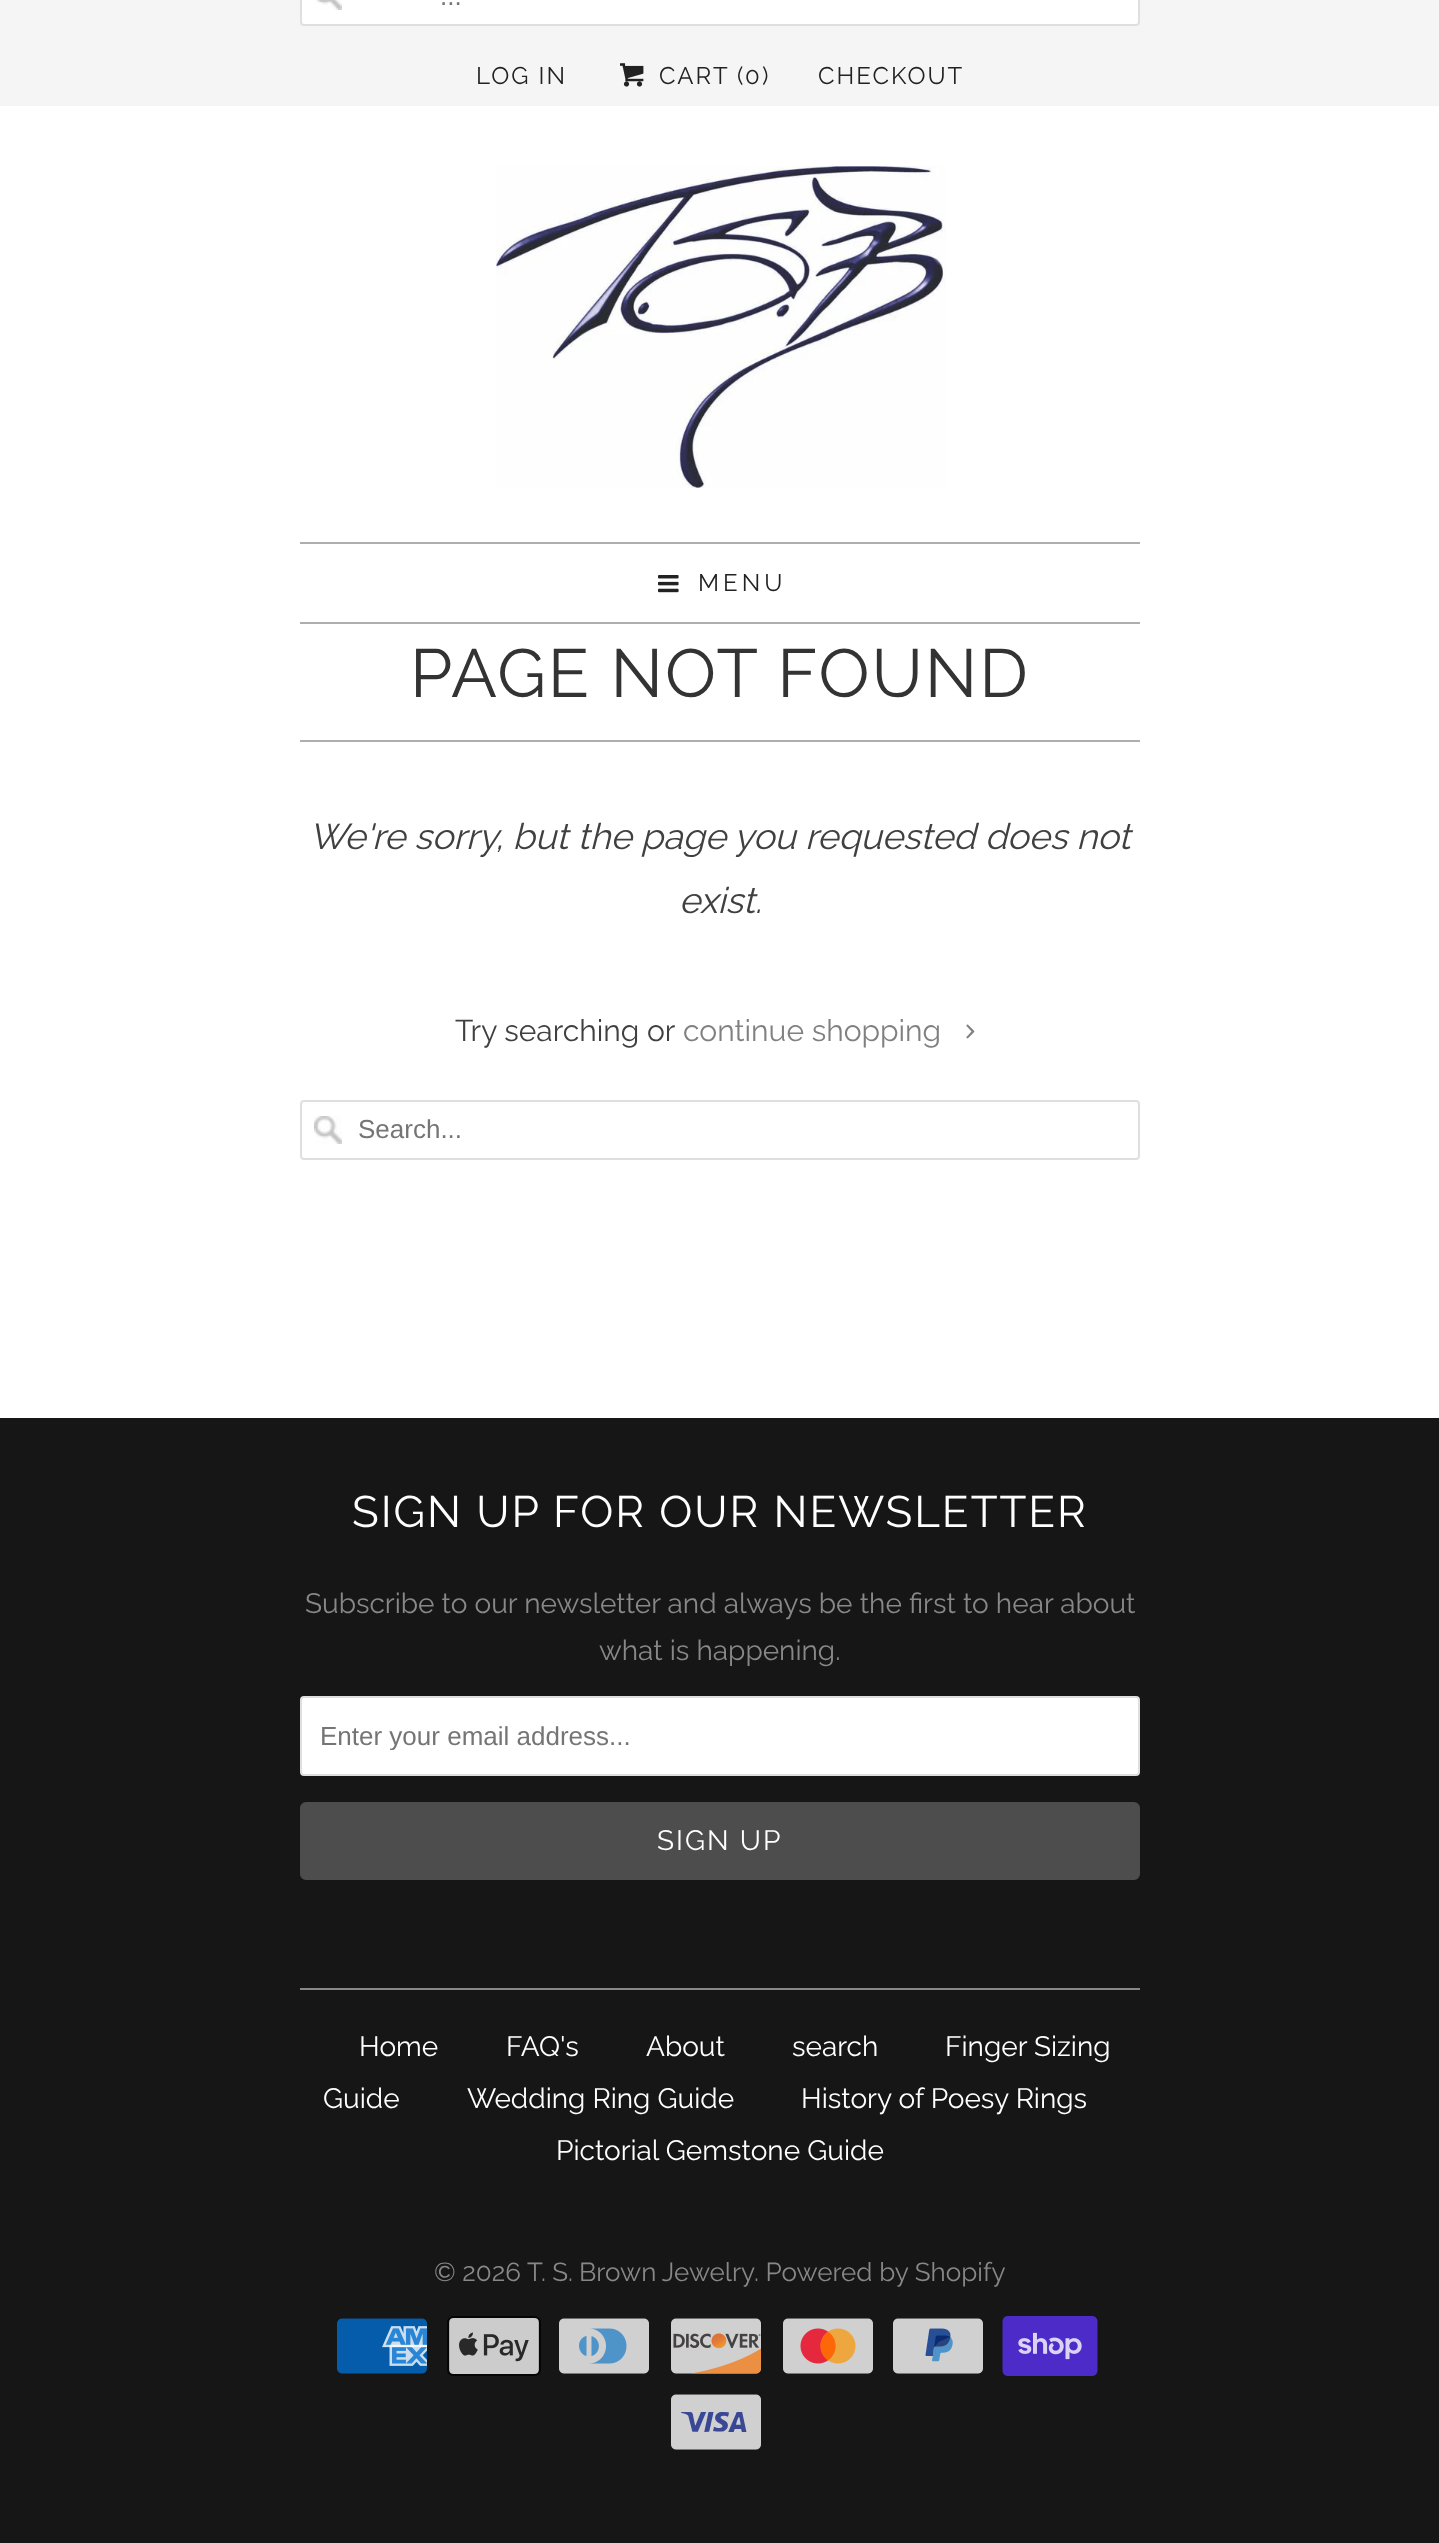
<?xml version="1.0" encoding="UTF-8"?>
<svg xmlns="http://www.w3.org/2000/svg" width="1439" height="2543">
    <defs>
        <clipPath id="clip1"><rect x="320" y="1720" width="800" height="30"/></clipPath>
    </defs>
    <rect width="100%" height="100%" fill="#FFFFFF"/>
    <rect x="0" y="0" width="1439" height="106" fill="#F5F5F5"/>
    <rect x="300" y="-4" width="840" height="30" rx="4" fill="#FFFFFF"/>
    <image x="316" y="0" width="26" height="10" href="img_01.png"/>
    <rect x="301" y="-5" width="838" height="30" rx="3" fill="none" stroke="#DFDFDF" stroke-width="2"/>
    <text x="440" y="5" font-family="Liberation Sans" font-size="26" fill="#757575">...</text>
    <text x="476" y="84" font-family="Raleway" font-size="24" letter-spacing="2" fill="#222222">LOG IN</text>
    <image x="620" y="63" width="24" height="24" href="img_02.png"/>
    <text x="659" y="84" font-family="Raleway" font-size="24" letter-spacing="2" fill="#222222">CART (</text>
    <text x="745" y="84" font-family="Raleway" font-size="24" letter-spacing="2" fill="#222222">0</text>
    <text x="762" y="84" font-family="Raleway" font-size="24" letter-spacing="2" fill="#222222">)</text>
    <text x="818" y="84" font-family="Raleway" font-size="24" letter-spacing="2" fill="#222222">CHECKOUT</text>
    <image x="496" y="166" width="450" height="322" href="img_03.png"/>
    <rect x="300" y="542" width="840" height="2" fill="#AEAEB0"/>
    <rect x="300" y="622" width="840" height="2" fill="#AEAEB0"/>
    <image x="658" y="575" width="21" height="18" href="img_04.png"/>
    <text x="698" y="591" font-family="Raleway" font-size="24" letter-spacing="4" fill="#222222">MENU</text>
    <rect x="300" y="740" width="840" height="2" fill="#AEAEB0"/>
    <text x="410" y="697" font-family="Raleway" font-size="68" letter-spacing="2" fill="#333333">PAGE NOT FOUND</text>
    <text x="309" y="849" font-family="Raleway" font-size="36" font-style="italic" fill="#404040">We're sorry, but the page you requested does not</text>
    <text x="679" y="913" font-family="Raleway" font-size="36" font-style="italic" fill="#404040">exist.</text>
    <text x="455" y="1041" font-family="Raleway" font-size="30" fill="#404040">Try searching or</text>
    <text x="683" y="1041" font-family="Raleway" font-size="30" fill="#808080">continue shopping</text>
    <image x="966" y="1024" width="9" height="15" href="img_05.png"/>
    <image x="314" y="1116" width="28" height="28" href="img_06.png"/>
    <rect x="301" y="1101" width="838" height="58" rx="3" fill="none" stroke="#DFDFDF" stroke-width="2"/>
    <text x="358" y="1138" font-family="Liberation Sans" font-size="26" fill="#757575">Search...</text>
    <rect x="0" y="1418" width="1439" height="1125" fill="#161616"/>
    <text x="352" y="1527" font-family="Raleway" font-size="44" letter-spacing="2" fill="#FFFFFF">SIGN UP FOR OUR NEWSLETTER</text>
    <text x="305" y="1613" font-family="Raleway" font-size="28" fill="#888888">Subscribe to our newsletter and always be the first to hear about</text>
    <text x="599" y="1660" font-family="Raleway" font-size="28" fill="#888888">what is happening.</text>
    <rect x="301" y="1697" width="838" height="78" rx="3" fill="#FFFFFF" stroke="#DFDFDF" stroke-width="2"/>
    <g clip-path="url(#clip1)">
        <text x="320" y="1745" font-family="Liberation Sans" font-size="26" fill="#757575">Enter your email address...</text>
    </g>
    <rect x="301" y="1803" width="838" height="76" rx="5" fill="#4D4D4D" stroke="#4D4D4D" stroke-width="2"/>
    <text x="657" y="1850" font-family="Raleway" font-size="28" letter-spacing="2" fill="#FFFFFF">SIGN UP</text>
    <rect x="300" y="1988" width="840" height="2" fill="#888888"/>
    <text x="359" y="2056" font-family="Raleway" font-size="28" fill="#FFFFFF">Home</text>
    <text x="506" y="2056" font-family="Raleway" font-size="28" fill="#FFFFFF">FAQ's</text>
    <text x="646" y="2056" font-family="Raleway" font-size="28" fill="#FFFFFF">About</text>
    <text x="792" y="2056" font-family="Raleway" font-size="28" fill="#FFFFFF">search</text>
    <text x="945" y="2056" font-family="Raleway" font-size="28" fill="#FFFFFF">Finger Sizing</text>
    <text x="323" y="2108" font-family="Raleway" font-size="28" fill="#FFFFFF">Guide</text>
    <text x="467" y="2108" font-family="Raleway" font-size="28" fill="#FFFFFF">Wedding Ring Guide</text>
    <text x="801" y="2108" font-family="Raleway" font-size="28" fill="#FFFFFF">History of Poesy Rings</text>
    <text x="556" y="2160" font-family="Raleway" font-size="28" fill="#FFFFFF">Pictorial Gemstone Guide</text>
    <text x="434" y="2281" font-family="Raleway" font-size="26" fill="#888888">© 2026</text>
    <text x="527" y="2281" word-spacing="-0.5" font-family="Raleway" font-size="26" fill="#888888">T. S. Brown Jewelry</text>
    <text x="754" y="2281" font-family="Raleway" font-size="26" fill="#888888">. Powered by Shopify</text>
    <image x="337" y="2318" width="90" height="56" href="img_07.png"/>
    <image x="447" y="2316" width="94" height="60" href="img_08.png"/>
    <image x="559" y="2318" width="90" height="56" href="img_09.png"/>
    <image x="671" y="2318" width="91" height="56" href="img_10.png"/>
    <image x="783" y="2318" width="90" height="56" href="img_11.png"/>
    <image x="893" y="2318" width="90" height="56" href="img_12.png"/>
    <image x="1002" y="2316" width="96" height="60" href="img_13.png"/>
    <image x="671" y="2394" width="90" height="56" href="img_14.png"/>
</svg>
